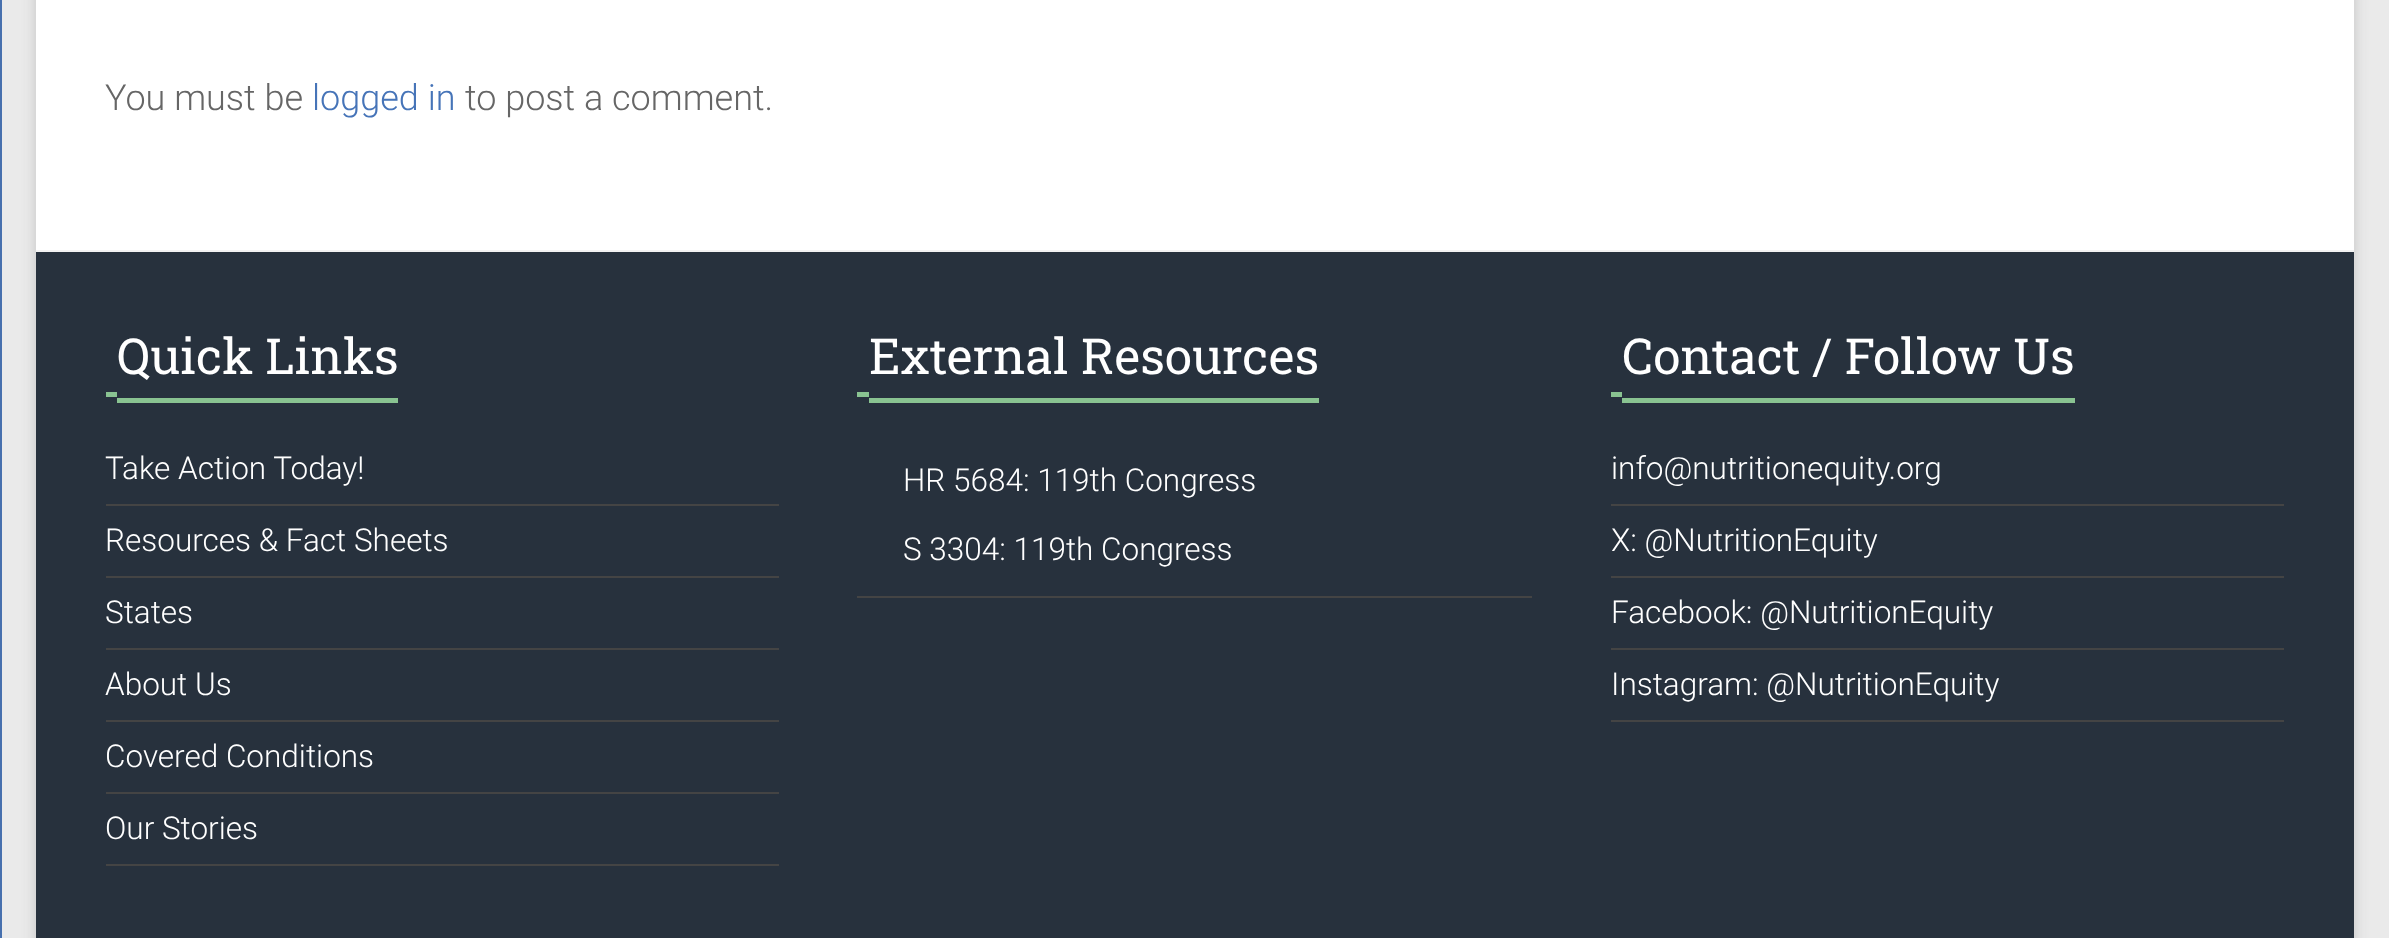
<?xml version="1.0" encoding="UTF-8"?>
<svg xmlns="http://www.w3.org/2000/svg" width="2389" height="938">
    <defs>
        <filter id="blur1" x="-50%" y="-200%" width="200%" height="500%"><feGaussianBlur stdDeviation="7"/></filter>
    </defs>
    <rect width="100%" height="100%" fill="#EAEAEA"/>
    <rect x="0" y="0" width="2" height="938" fill="#4770AE"/>
    <rect x="36" y="-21" width="2318" height="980" fill="#646464" fill-opacity="0.3" filter="url(#blur1)"/>
    <rect x="36" y="0" width="2318" height="250" fill="#FFFFFF"/>
    <text x="105" y="110" font-family="Roboto" font-size="36" font-weight="300" fill="#666666">You must be</text>
    <text x="312" y="110" font-family="Roboto" font-size="36" font-weight="300" fill="#4674B8">logged in</text>
    <text x="465" y="110" font-family="Roboto" font-size="36" font-weight="300" fill="#666666">to post a comment.</text>
    <rect x="36" y="252" width="2318" height="686" fill="#27313D"/>
    <rect x="36" y="250" width="2318" height="2" fill="#F2F2F2"/>
    <text x="117" y="374" font-family="Roboto Slab" font-size="49.5" fill="#FFFFFF">Quick Links</text>
    <rect x="106" y="392" width="11" height="5" fill="#89C391"/>
    <rect x="117" y="398" width="281" height="5" fill="#89C391"/>
    <rect x="106" y="504" width="673" height="2" fill="#444444"/>
    <text x="105" y="479" font-family="Roboto" font-size="31.5" font-weight="300" fill="#FFFFFF">Take Action Today!</text>
    <rect x="106" y="576" width="673" height="2" fill="#444444"/>
    <text x="105" y="551" font-family="Roboto" font-size="31.5" font-weight="300" fill="#FFFFFF">Resources &amp; Fact Sheets</text>
    <rect x="106" y="648" width="673" height="2" fill="#444444"/>
    <text x="105" y="623" font-family="Roboto" font-size="31.5" font-weight="300" fill="#FFFFFF">States</text>
    <rect x="106" y="720" width="673" height="2" fill="#444444"/>
    <text x="105" y="695" font-family="Roboto" font-size="31.5" font-weight="300" fill="#FFFFFF">About Us</text>
    <rect x="106" y="792" width="673" height="2" fill="#444444"/>
    <text x="105" y="767" font-family="Roboto" font-size="31.5" font-weight="300" fill="#FFFFFF">Covered Conditions</text>
    <rect x="106" y="864" width="673" height="2" fill="#444444"/>
    <text x="105" y="839" font-family="Roboto" font-size="31.5" font-weight="300" fill="#FFFFFF">Our Stories</text>
    <text x="869" y="374" font-family="Roboto Slab" font-size="49.5" fill="#FFFFFF">External Resources</text>
    <rect x="857" y="392" width="12" height="5" fill="#89C391"/>
    <rect x="869" y="398" width="450" height="5" fill="#89C391"/>
    <rect x="857" y="596" width="675" height="2" fill="#444444"/>
    <text x="903" y="491" font-family="Roboto" font-size="31.5" font-weight="300" fill="#FFFFFF">HR 5684: 119th Congress</text>
    <text x="903" y="560" font-family="Roboto" font-size="31.5" font-weight="300" fill="#FFFFFF">S 3304: 119th Congress</text>
    <text x="1622" y="374" font-family="Roboto Slab" font-size="49.5" fill="#FFFFFF">Contact / Follow Us</text>
    <rect x="1611" y="392" width="11" height="5" fill="#89C391"/>
    <rect x="1622" y="398" width="453" height="5" fill="#89C391"/>
    <rect x="1611" y="504" width="673" height="2" fill="#444444"/>
    <text x="1611" y="479" font-family="Roboto" font-size="31.5" font-weight="300" fill="#FFFFFF">info@nutritionequity.org</text>
    <rect x="1611" y="576" width="673" height="2" fill="#444444"/>
    <text x="1611" y="551" font-family="Roboto" font-size="31.5" font-weight="300" fill="#FFFFFF">X: @NutritionEquity</text>
    <rect x="1611" y="648" width="673" height="2" fill="#444444"/>
    <text x="1611" y="623" font-family="Roboto" font-size="31.5" font-weight="300" fill="#FFFFFF">Facebook: @NutritionEquity</text>
    <rect x="1611" y="720" width="673" height="2" fill="#444444"/>
    <text x="1611" y="695" font-family="Roboto" font-size="31.5" font-weight="300" fill="#FFFFFF">Instagram: @NutritionEquity</text>
</svg>
